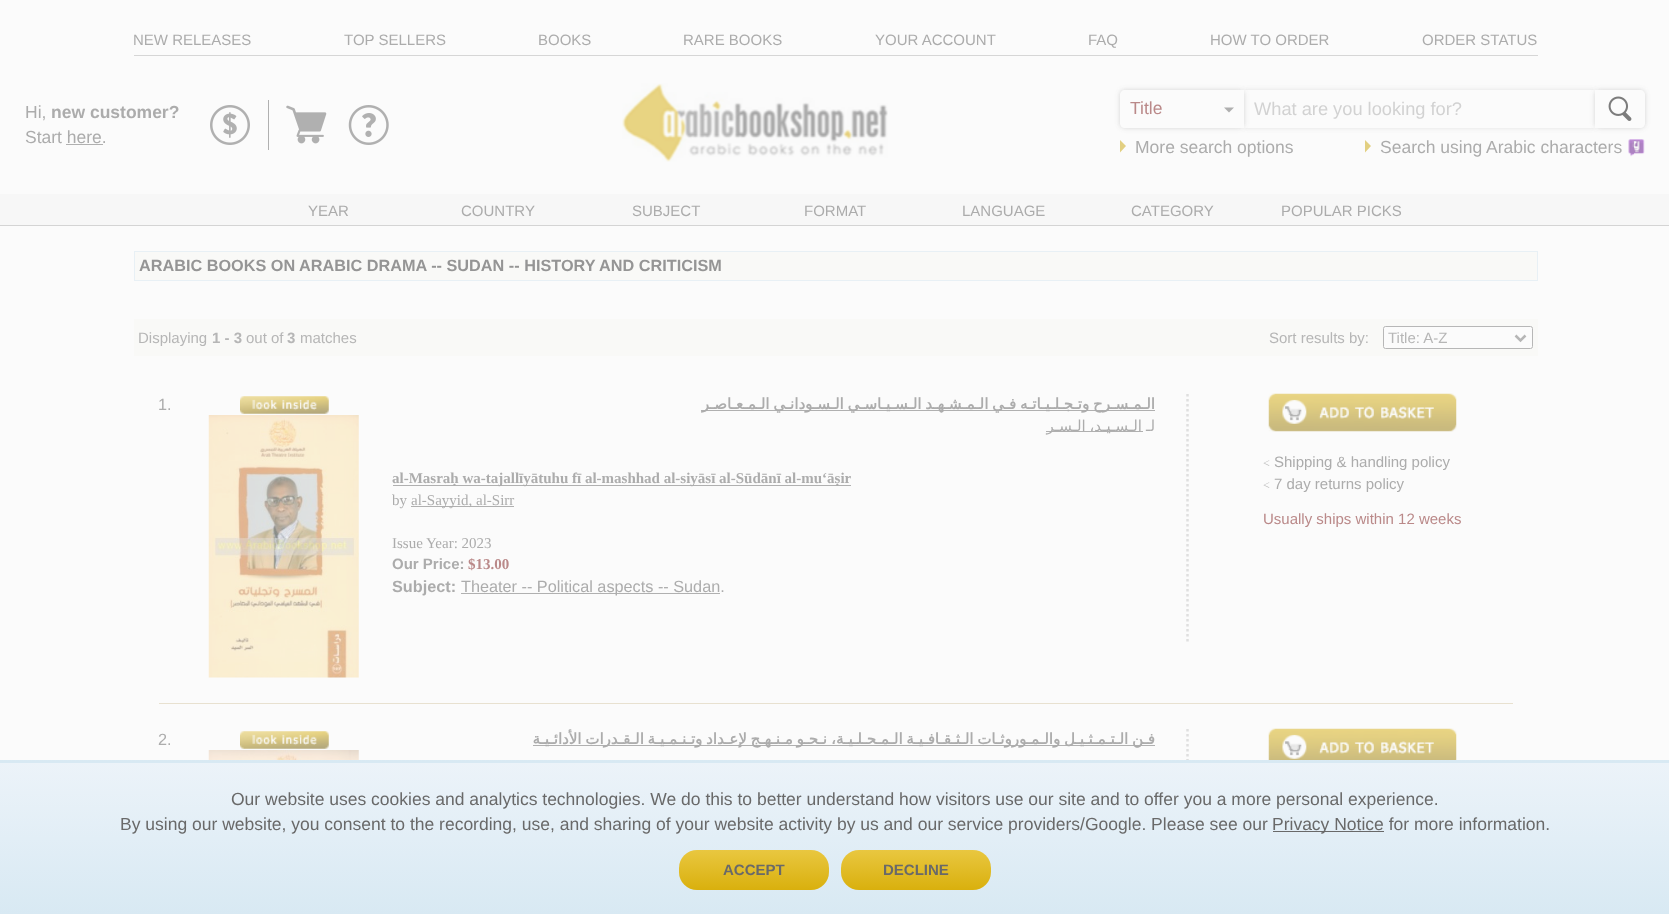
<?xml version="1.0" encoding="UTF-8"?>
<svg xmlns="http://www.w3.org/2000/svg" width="1669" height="914">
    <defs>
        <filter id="blur1" x="-50%" y="-200%" width="200%" height="500%"><feGaussianBlur stdDeviation="2.5"/></filter>
        <linearGradient id="g1" gradientUnits="userSpaceOnUse" x1="835" y1="610" x2="835" y2="763"><stop offset="0" stop-color="#ECF3F9"/><stop offset="1" stop-color="#D8E9F3"/></linearGradient>
        <linearGradient id="g2" gradientUnits="userSpaceOnUse" x1="835" y1="762" x2="835" y2="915"><stop offset="0" stop-color="#ECF3F9"/><stop offset="1" stop-color="#D8E9F3"/></linearGradient>
        <linearGradient id="g3" gradientUnits="userSpaceOnUse" x1="754" y1="850" x2="754" y2="890"><stop offset="0" stop-color="#E9C740"/><stop offset="1" stop-color="#D9B00D"/></linearGradient>
        <linearGradient id="g4" gradientUnits="userSpaceOnUse" x1="916" y1="850" x2="916" y2="890"><stop offset="0" stop-color="#E9C740"/><stop offset="1" stop-color="#D9B00D"/></linearGradient>
    </defs>
    <rect width="100%" height="100%" fill="#FBFBFB"/>
    <rect x="134" y="55" width="1404" height="1" fill="#D6D6D6"/>
    <text x="133" y="45" font-family="Liberation Sans" font-size="15" fill="#ACACAC">NEW RELEASES</text>
    <text x="344" y="45" font-family="Liberation Sans" font-size="15" fill="#ACACAC">TOP SELLERS</text>
    <text x="538" y="45" font-family="Liberation Sans" font-size="15" fill="#ACACAC">BOOKS</text>
    <text x="683" y="45" font-family="Liberation Sans" font-size="15" fill="#ACACAC">RARE BOOKS</text>
    <text x="875" y="45" font-family="Liberation Sans" font-size="15" fill="#ACACAC">YOUR ACCOUNT</text>
    <text x="1088" y="45" font-family="Liberation Sans" font-size="15" fill="#ACACAC">FAQ</text>
    <text x="1210" y="45" font-family="Liberation Sans" font-size="15" fill="#ACACAC">HOW TO ORDER</text>
    <text x="1422" y="45" font-family="Liberation Sans" font-size="15" fill="#ACACAC">ORDER STATUS</text>
    <text x="25" y="118" font-family="Liberation Sans" font-size="17.5" fill="#ACACAC">Hi,</text>
    <text x="51" y="118" font-family="Liberation Sans" font-size="17.5" font-weight="700" fill="#ACACAC">new customer?</text>
    <text x="25" y="143" font-family="Liberation Sans" font-size="17.5" fill="#ACACAC">Start here.</text>
    <rect x="66" y="144" width="37" height="1" fill="#B0B0B0"/>
    <rect x="268" y="100" width="1" height="50" fill="#B0B0B0"/>
    <image x="210" y="105" width="40" height="40" href="img_01.png"/>
    <image x="286" y="105" width="41" height="39" href="img_02.png"/>
    <image x="348" y="105" width="41" height="40" href="img_03.png"/>
    <image x="622" y="83" width="266" height="79" href="img_04.png"/>
    <rect x="1244" y="90" width="351" height="38" fill="#7C7C7C" fill-opacity="0.2" filter="url(#blur1)"/>
    <rect x="1244" y="90" width="351" height="38" fill="#FBFBFB"/>
    <rect x="1120" y="90" width="124" height="38" rx="5" fill="#7C7C7C" fill-opacity="0.3" filter="url(#blur1)"/>
    <path d="M 1125 90 H 1244 V 128 H 1125 C 1122 128 1120 126 1120 123 V 95 C 1120 92 1122 90 1125 90 Z" fill="#FBFBFB"/>
    <text x="1130" y="114" font-family="Liberation Sans" font-size="17.5" fill="#BA8989">Title</text>
    <path d="M 1224 107.5 H 1234 L 1229 112.5 Z" fill="#AFAFAF"/>
    <text x="1254" y="115" font-family="Liberation Sans" font-size="18.25" fill="#D2D2D2">What are you looking for?</text>
    <rect x="1595" y="90" width="50" height="38" rx="5" fill="#7C7C7C" fill-opacity="0.3" filter="url(#blur1)"/>
    <path d="M 1595 90 H 1640 C 1643 90 1645 92 1645 95 V 123 C 1645 126 1643 128 1640 128 H 1595 Z" fill="#FBFBFB"/>
    <image x="1608" y="96" width="24" height="25" href="img_05.png"/>
    <path d="M 1120 152.5 V 140 L 1126 146 Z" fill="#E2CF81"/>
    <text x="1135" y="153" font-family="Liberation Sans" font-size="17.5" fill="#ACACAC">More search options</text>
    <path d="M 1365 152.5 V 140 L 1371 146 Z" fill="#E2CF81"/>
    <text x="1380" y="153" font-family="Liberation Sans" font-size="17.5" fill="#ACACAC">Search using</text>
    <text x="1486" y="153" font-family="Liberation Sans" font-size="17.5" fill="#ACACAC">Arabic characters</text>
    <image x="1628" y="139" width="17" height="18" href="img_06.png"/>
    <rect x="0" y="194" width="1669" height="31" fill="#F7F7F7"/>
    <rect x="0" y="225" width="1669" height="1" fill="#D4D4D4"/>
    <text x="308" y="216" font-family="Liberation Sans" font-size="15" fill="#ACACAC">YEAR</text>
    <text x="461" y="216" font-family="Liberation Sans" font-size="15" fill="#ACACAC">COUNTRY</text>
    <text x="632" y="216" font-family="Liberation Sans" font-size="15" fill="#ACACAC">SUBJECT</text>
    <text x="804" y="216" font-family="Liberation Sans" font-size="15" fill="#ACACAC">FORMAT</text>
    <text x="962" y="216" font-family="Liberation Sans" font-size="15" fill="#ACACAC">LANGUAGE</text>
    <text x="1131" y="216" font-family="Liberation Sans" font-size="15" fill="#ACACAC">CATEGORY</text>
    <text x="1281" y="216" font-family="Liberation Sans" font-size="15" fill="#ACACAC">POPULAR PICKS</text>
    <rect x="134.5" y="251.5" width="1403" height="29" fill="#F9F9F7" stroke="#E8F0F5"/>
    <text x="139" y="271" font-family="Liberation Sans" font-size="16.25" font-weight="700" fill="#959595">ARABIC BOOKS ON ARABIC DRAMA -- SUDAN -- HISTORY AND CRITICISM</text>
    <rect x="134" y="319" width="1404" height="37" fill="#F9F9F7"/>
    <text x="138" y="343" font-family="Liberation Sans" font-size="15" fill="#B6B6B6">Displaying</text>
    <text x="212" y="343" font-family="Liberation Sans" font-size="15" font-weight="700" fill="#B6B6B6">1 - 3</text>
    <text x="246" y="343" font-family="Liberation Sans" font-size="15" fill="#B6B6B6">out of</text>
    <text x="287" y="343" font-family="Liberation Sans" font-size="15" font-weight="700" fill="#B6B6B6">3</text>
    <text x="300" y="343" font-family="Liberation Sans" font-size="15" fill="#B6B6B6">matches</text>
    <text x="1269" y="343" font-family="Liberation Sans" font-size="15" fill="#B6B6B6">Sort results by:</text>
    <rect x="1383.5" y="326.5" width="149" height="22" rx="2" fill="#FBFBFB" stroke="#B7B7B7"/>
    <path d="M 1515.5 335.5 L 1520.5 340.5 L 1525.5 335.5" fill="none" stroke="#B6B6B6" stroke-width="2.5"/>
    <text x="1388" y="343" font-family="Liberation Sans" font-size="15" fill="#B6B6B6">Title: A-Z</text>
    <rect x="159" y="703" width="1354" height="1" fill="#E8E1D0"/>
    <text x="158" y="410" font-family="Liberation Sans" font-size="16.25" fill="#ACACAC">1.</text>
    <image x="240" y="396" width="89" height="18" href="img_07.png"/>
    <image x="208" y="415" width="151" height="263" href="img_08.png"/>
    <rect x="701" y="410" width="454" height="1" fill="#B0B0B0"/>
    <text x="1155" y="409" word-spacing="-1" font-family="DejaVu Sans" font-size="15" font-weight="700" direction="rtl" fill="#ACACAC">الـمـسـرح وتـجـلـيـاتـه فـي الـمـشـهـد الـسـيـاسـي الـسـودانـي الـمـعـاصـر</text>
    <rect x="1046" y="431" width="97" height="1" fill="#B0B0B0"/>
    <text x="1142" y="431" word-spacing="-1" font-family="DejaVu Sans" font-size="15" direction="rtl" fill="#ACACAC">الـسـيـد، الـسـر</text>
    <text x="1155" y="431" font-family="DejaVu Sans" font-size="15" direction="rtl" fill="#ACACAC">لـ</text>
    <rect x="393" y="485" width="458" height="1" fill="#B0B0B0"/>
    <text x="392" y="483" font-family="Liberation Serif" font-size="15" font-weight="700" fill="#ACACAC">al-Masraḥ wa-tajallīyātuhu fī al-mashhad al-siyāsī al-Sūdānī al-mu‘āṣir</text>
    <text x="392" y="505" font-family="Liberation Serif" font-size="15" fill="#ACACAC">by</text>
    <rect x="411" y="506" width="103" height="1" fill="#B0B0B0"/>
    <text x="411" y="505" font-family="Liberation Serif" font-size="15" fill="#ACACAC">al-Sayyid, al-Sirr</text>
    <text x="392" y="548" font-family="Liberation Serif" font-size="15" fill="#ACACAC">Issue Year: 2023</text>
    <text x="392" y="569" font-family="Liberation Sans" font-size="15" font-weight="700" fill="#ACACAC">Our Price:</text>
    <text x="468" y="569" font-family="Liberation Serif" font-size="15" font-weight="700" fill="#BA8989">$13.00</text>
    <text x="392" y="592" font-family="Liberation Sans" font-size="16.25" font-weight="700" fill="#ACACAC">Subject:</text>
    <rect x="461" y="593" width="259" height="1" fill="#B0B0B0"/>
    <text x="461" y="592" font-family="Liberation Sans" font-size="16.25" fill="#ACACAC">Theater -- Political aspects -- Sudan.</text>
    <path d="M 1187.5 394 V 644" fill="none" stroke="#DFDFDF" stroke-width="2.5" stroke-dasharray="2.5 2.5"/>
    <image x="1268" y="393" width="189" height="39" href="img_09.png"/>
    <text x="1263" y="467" font-family="Liberation Serif" font-size="12" fill="#BCBCBC">&lt;</text>
    <text x="1274" y="467" font-family="Liberation Sans" font-size="15" fill="#ACACAC">Shipping &amp; handling policy</text>
    <text x="1263" y="489" font-family="Liberation Serif" font-size="12" fill="#BCBCBC">&lt;</text>
    <text x="1274" y="489" font-family="Liberation Sans" font-size="15" fill="#ACACAC">7 day returns policy</text>
    <text x="1263" y="524" font-family="Liberation Sans" font-size="15" fill="#BA8989">Usually ships within 12 weeks</text>
    <text x="158" y="745" font-family="Liberation Sans" font-size="16.25" fill="#ACACAC">2.</text>
    <image x="240" y="731" width="89" height="18" href="img_07.png"/>
    <image x="208" y="750" width="151" height="10" href="img_10.png"/>
    <rect x="533" y="745" width="622" height="1" fill="#B0B0B0"/>
    <text x="827" y="744" word-spacing="-1" font-family="DejaVu Sans" font-size="15" font-weight="700" direction="rtl" fill="#ACACAC">نـحـو مـنـهـج لإعـداد وتـنـمـيـة الـقـدرات الأدائـيـة</text>
    <text x="1155" y="744" word-spacing="-1" font-family="DejaVu Sans" font-size="15" font-weight="700" direction="rtl" fill="#ACACAC">فـن الـتـمـثـيـل والـمـوروثـات الـثـقـافـيـة الـمـحـلـيـة،</text>
    <path d="M 1187.5 729 V 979" fill="none" stroke="#DFDFDF" stroke-width="2.5" stroke-dasharray="2.5 2.5"/>
    <image x="1268" y="728" width="189" height="32" href="img_11.png"/>
    <rect x="0" y="760" width="1669" height="3" fill="url(#g1)"/>
    <rect x="0" y="763" width="1669" height="151" fill="url(#g2)"/>
    <text x="231" y="805" font-family="Liberation Sans" font-size="17.5" fill="#696969">Our website uses cookies and analytics technologies. We do this to better understand how visitors use our site and to offer you a more personal experience.</text>
    <text x="120" y="830" font-family="Liberation Sans" font-size="17.5" fill="#696969">By using our website, you consent to the recording, use, and sharing of your website activity by us and our service providers/Google. Please see our</text>
    <rect x="1273" y="831" width="111" height="1" fill="#696969"/>
    <text x="1272" y="830" font-family="Liberation Sans" font-size="17.5" fill="#696969">Privacy Notice for more information.</text>
    <rect x="679" y="850" width="150" height="40" rx="18" fill="url(#g3)"/>
    <text x="723" y="875" font-family="Liberation Sans" font-size="15" font-weight="700" fill="#696969">ACCEPT</text>
    <rect x="841" y="850" width="150" height="40" rx="18" fill="url(#g4)"/>
    <text x="883" y="875" font-family="Liberation Sans" font-size="15" font-weight="700" fill="#696969">DECLINE</text>
</svg>
